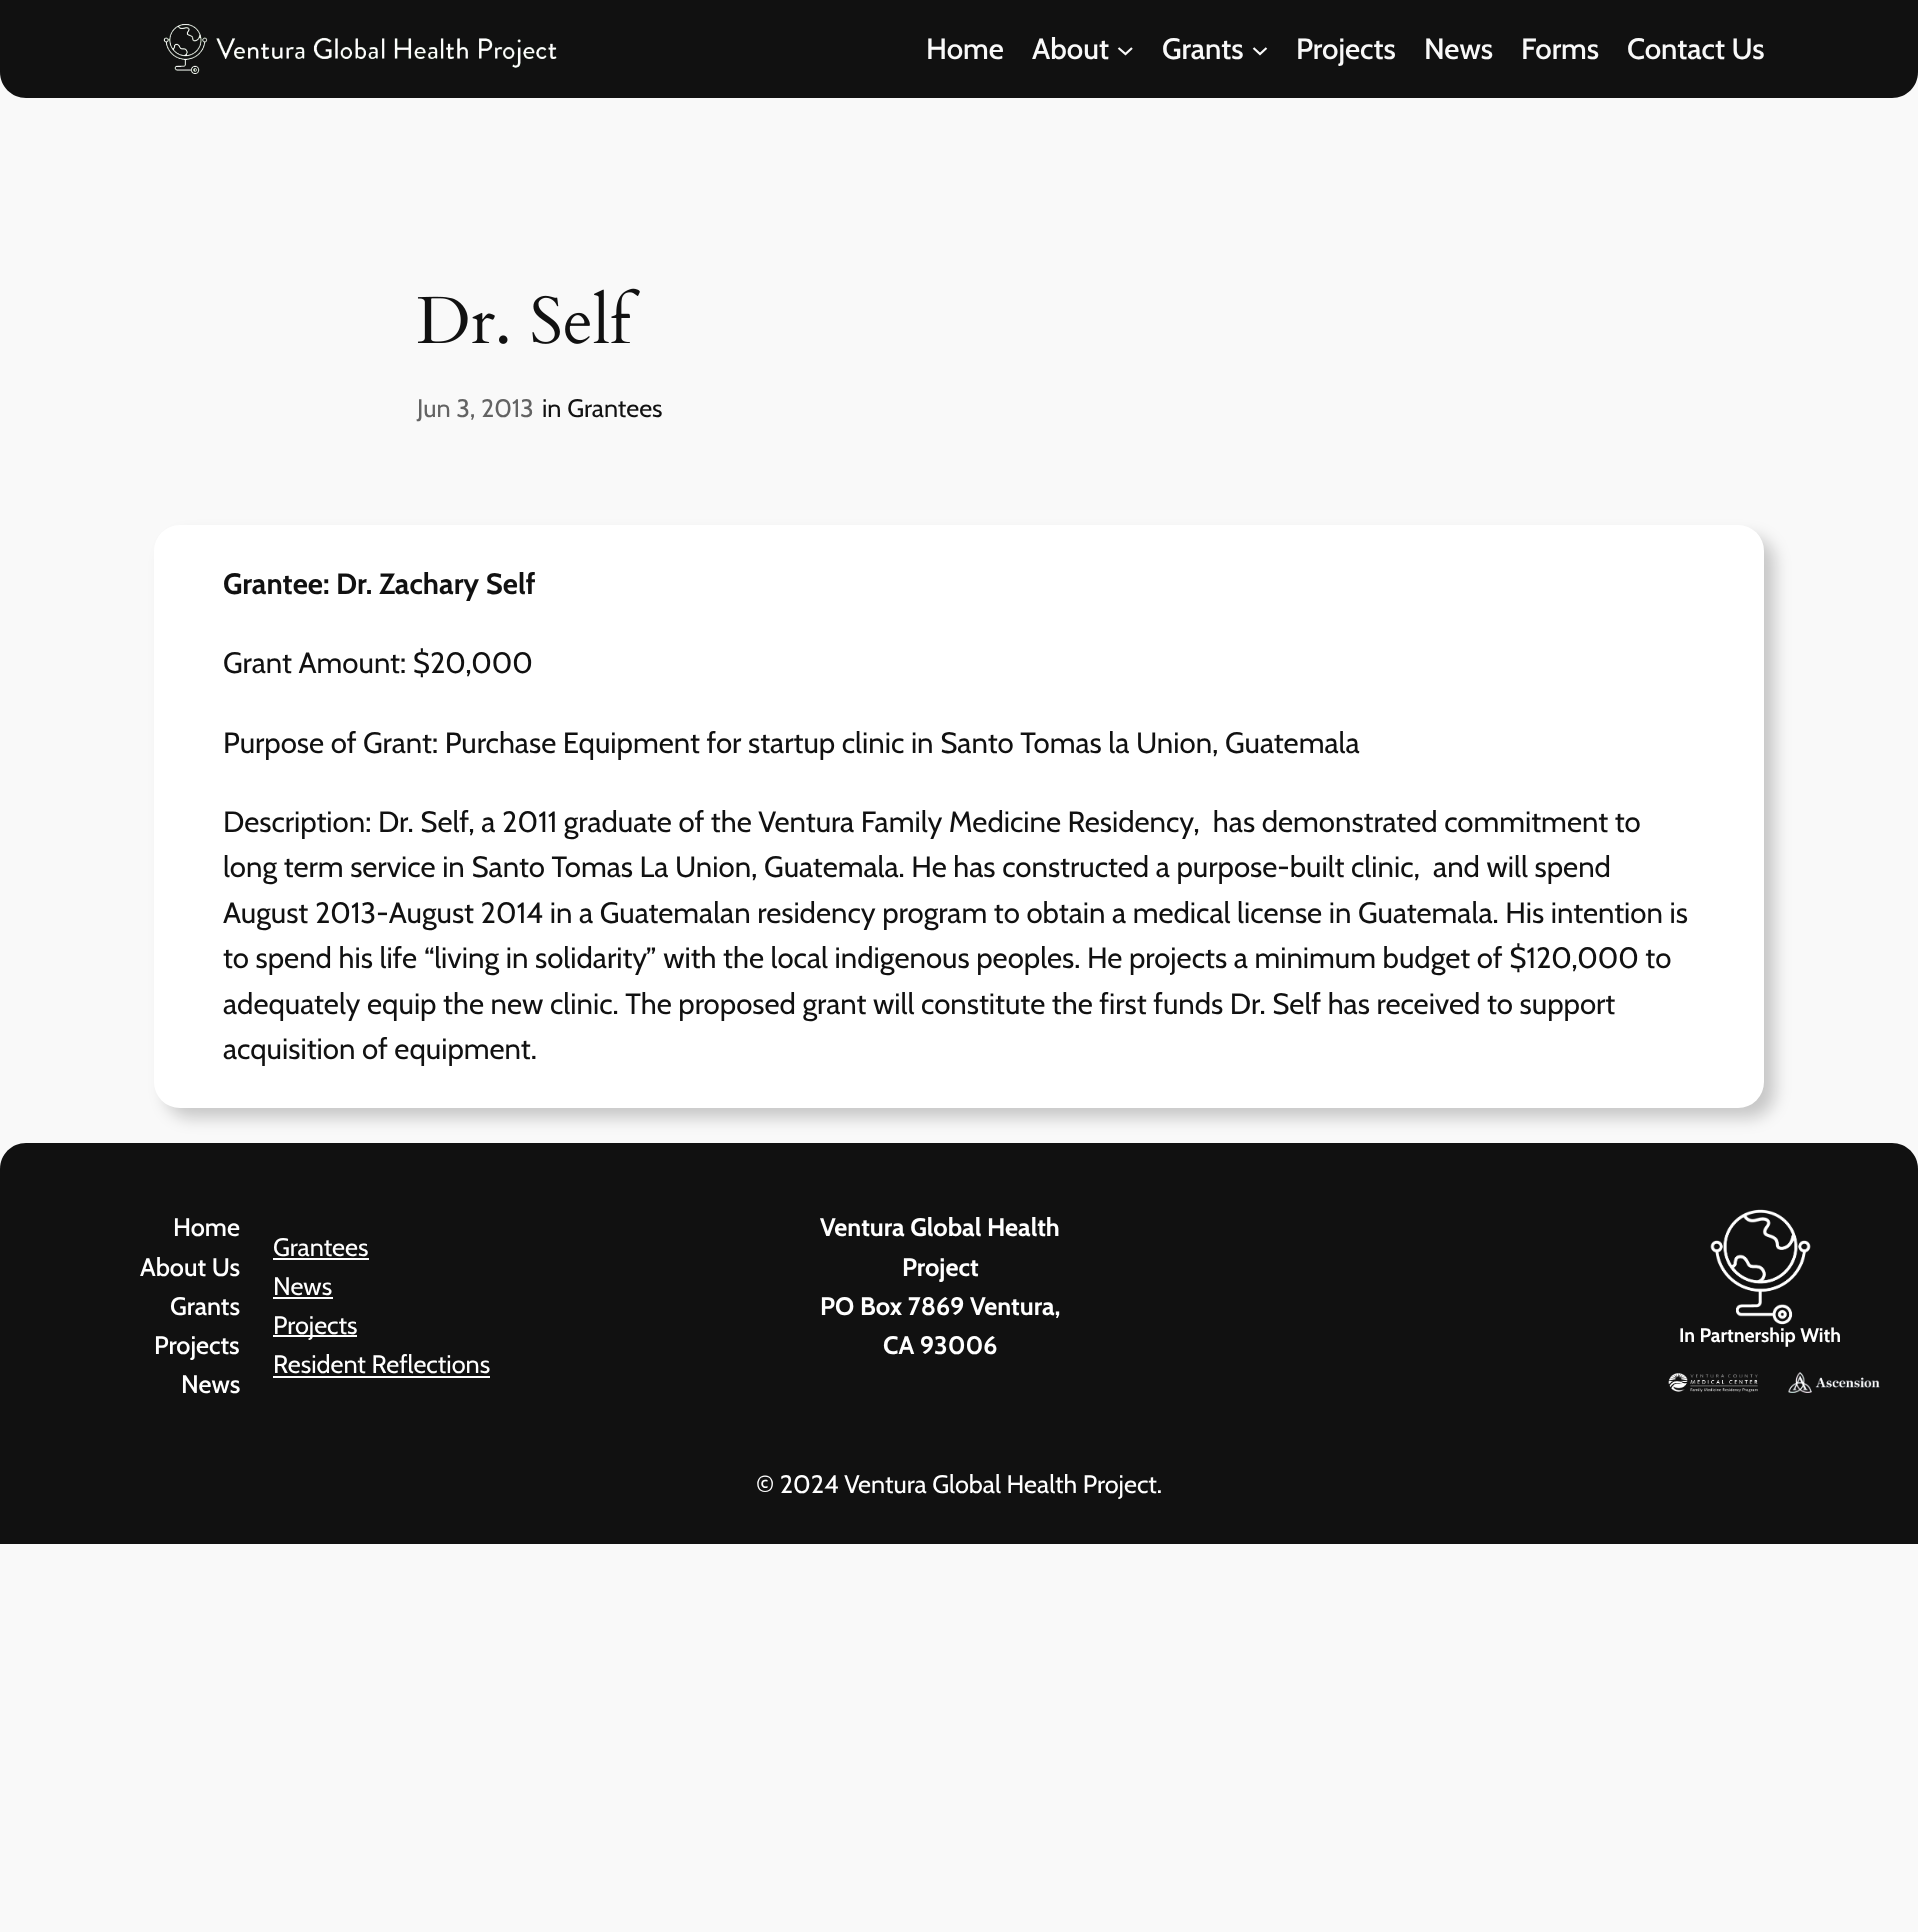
<?xml version="1.0" encoding="UTF-8"?>
<svg xmlns="http://www.w3.org/2000/svg" width="1918" height="1932">
    <defs>
        <filter id="blur1" x="-50%" y="-200%" width="200%" height="500%"><feGaussianBlur stdDeviation="8"/></filter>
    </defs>
    <rect width="100%" height="100%" fill="#F9F9F9"/>
    <path d="M 0 0 H 1918 V 72 C 1918 86.5 1906.5 98 1892 98 H 26 C 11.5 98 0 86.5 0 72 Z" fill="#111111"/>
    <image x="163" y="24" width="396" height="50" href="img_01.png"/>
    <text x="926" y="59" font-family="Cabin" font-size="29.4" font-weight="500" fill="#F9F9F9">Home</text>
    <text x="1032" y="59" font-family="Cabin" font-size="29.4" font-weight="500" fill="#F9F9F9">About</text>
    <path d="M 1118.5 48 L 1125.5 54 L 1132 48" fill="none" stroke="#F9F9F9" stroke-width="2.2"/>
    <text x="1162" y="59" font-family="Cabin" font-size="29.4" font-weight="500" fill="#F9F9F9">Grants</text>
    <path d="M 1253.5 48 L 1260 54 L 1266.5 48" fill="none" stroke="#F9F9F9" stroke-width="2.2"/>
    <text x="1296" y="59" font-family="Cabin" font-size="29.4" font-weight="500" fill="#F9F9F9">Projects</text>
    <text x="1424" y="59" font-family="Cabin" font-size="29.4" font-weight="500" fill="#F9F9F9">News</text>
    <text x="1521" y="59" font-family="Cabin" font-size="29.4" font-weight="500" fill="#F9F9F9">Forms</text>
    <text x="1627" y="59" font-family="Cabin" font-size="29.4" font-weight="500" fill="#F9F9F9">Contact Us</text>
    <image x="417" y="288" width="223" height="56" href="img_02.png"/>
    <text x="417" y="417" font-family="Cabin" font-size="25.25" fill="#636363">Jun 3, 2013</text>
    <text x="542" y="417" font-family="Cabin" font-size="25.25" fill="#111111">in Grantees</text>
    <rect x="165" y="536" width="1610" height="582" rx="26" fill="#000000" fill-opacity="0.2" filter="url(#blur1)"/>
    <rect x="154" y="525" width="1610" height="583" rx="26" fill="#FFFFFF"/>
    <text x="223" y="594" font-family="Cabin" font-size="29.4" font-weight="700" fill="#111111">Grantee: Dr. Zachary Self</text>
    <text x="223" y="673" font-family="Cabin" font-size="29.4" fill="#111111">Grant Amount: $20,000</text>
    <text x="223" y="753" font-family="Cabin" font-size="29.4" fill="#111111">Purpose of Grant: Purchase Equipment for startup clinic in Santo Tomas la Union, Guatemala</text>
    <text font-family="Cabin" font-size="29.4" fill="#111111" xml:space="preserve"><tspan x="223" y="832">Description: Dr. Self, a 2011 graduate of the Ventura Family Medicine Residency,  has demonstrated commitment to</tspan><tspan x="223" y="877">long term service in Santo Tomas La Union, Guatemala. He has constructed a purpose-built clinic,  and will spend</tspan><tspan x="223" y="923">August 2013-August 2014 in a Guatemalan residency program to obtain a medical license in Guatemala. His intention is</tspan><tspan x="223" y="968">to spend his life “living in solidarity” with the local indigenous peoples. He projects a minimum budget of $120,000 to</tspan><tspan x="223" y="1014">adequately equip the new clinic. The proposed grant will constitute the first funds Dr. Self has received to support</tspan><tspan x="223" y="1059">acquisition of equipment.</tspan></text>
    <path d="M 26 1143 H 1892 C 1906.5 1143 1918 1154.5 1918 1169 V 1544 H 0 V 1169 C 0 1154.5 11.5 1143 26 1143 Z" fill="#111111"/>
    <text x="173" y="1236" font-family="Cabin" font-size="25.25" font-weight="500" fill="#FFFFFF">Home</text>
    <text x="140" y="1276" font-family="Cabin" font-size="25.25" font-weight="500" fill="#FFFFFF">About Us</text>
    <text x="170" y="1315" font-family="Cabin" font-size="25.25" font-weight="500" fill="#FFFFFF">Grants</text>
    <text x="154" y="1354" font-family="Cabin" font-size="25.25" font-weight="500" fill="#FFFFFF">Projects</text>
    <text x="181" y="1393" font-family="Cabin" font-size="25.25" font-weight="500" fill="#FFFFFF">News</text>
    <text x="273" y="1256" font-family="Cabin" font-size="25.25" fill="#FFFFFF">Grantees</text>
    <rect x="273" y="1258" width="96" height="2" fill="#FFFFFF"/>
    <text x="273" y="1295" font-family="Cabin" font-size="25.25" fill="#FFFFFF">News</text>
    <rect x="273" y="1297" width="60" height="2" fill="#FFFFFF"/>
    <rect x="273" y="1335" width="84" height="2" fill="#FFFFFF"/>
    <text font-family="Cabin" font-size="25.25" fill="#FFFFFF">
        <tspan x="273" y="1334">Projects</tspan>
        <tspan x="273" y="1373">Resident Reflections</tspan>
    </text>
    <rect x="273" y="1376" width="217" height="2" fill="#FFFFFF"/>
    <text x="820" y="1236" font-family="Cabin" font-size="25.25" font-weight="700" fill="#FFFFFF">Ventura Global Health</text>
    <text x="902" y="1276" font-family="Cabin" font-size="25.25" font-weight="700" fill="#FFFFFF">Project</text>
    <text x="820" y="1315" font-family="Cabin" font-size="25.25" font-weight="700" fill="#FFFFFF">PO Box 7869 Ventura,</text>
    <text x="883" y="1354" font-family="Cabin" font-size="25.25" font-weight="700" fill="#FFFFFF">CA 93006</text>
    <image x="1710" y="1209" width="101" height="116" href="img_03.png"/>
    <text x="1679" y="1342" font-family="Cabin" font-size="19.5" font-weight="700" fill="#FFFFFF">In Partnership With</text>
    <image x="1668" y="1373" width="90" height="20" href="img_04.png"/>
    <image x="1788" y="1372" width="92" height="21" href="img_05.png"/>
    <text x="756" y="1493" font-family="Cabin" font-size="25.25" fill="#FFFFFF">© 2024 Ventura Global Health Project.</text>
</svg>
